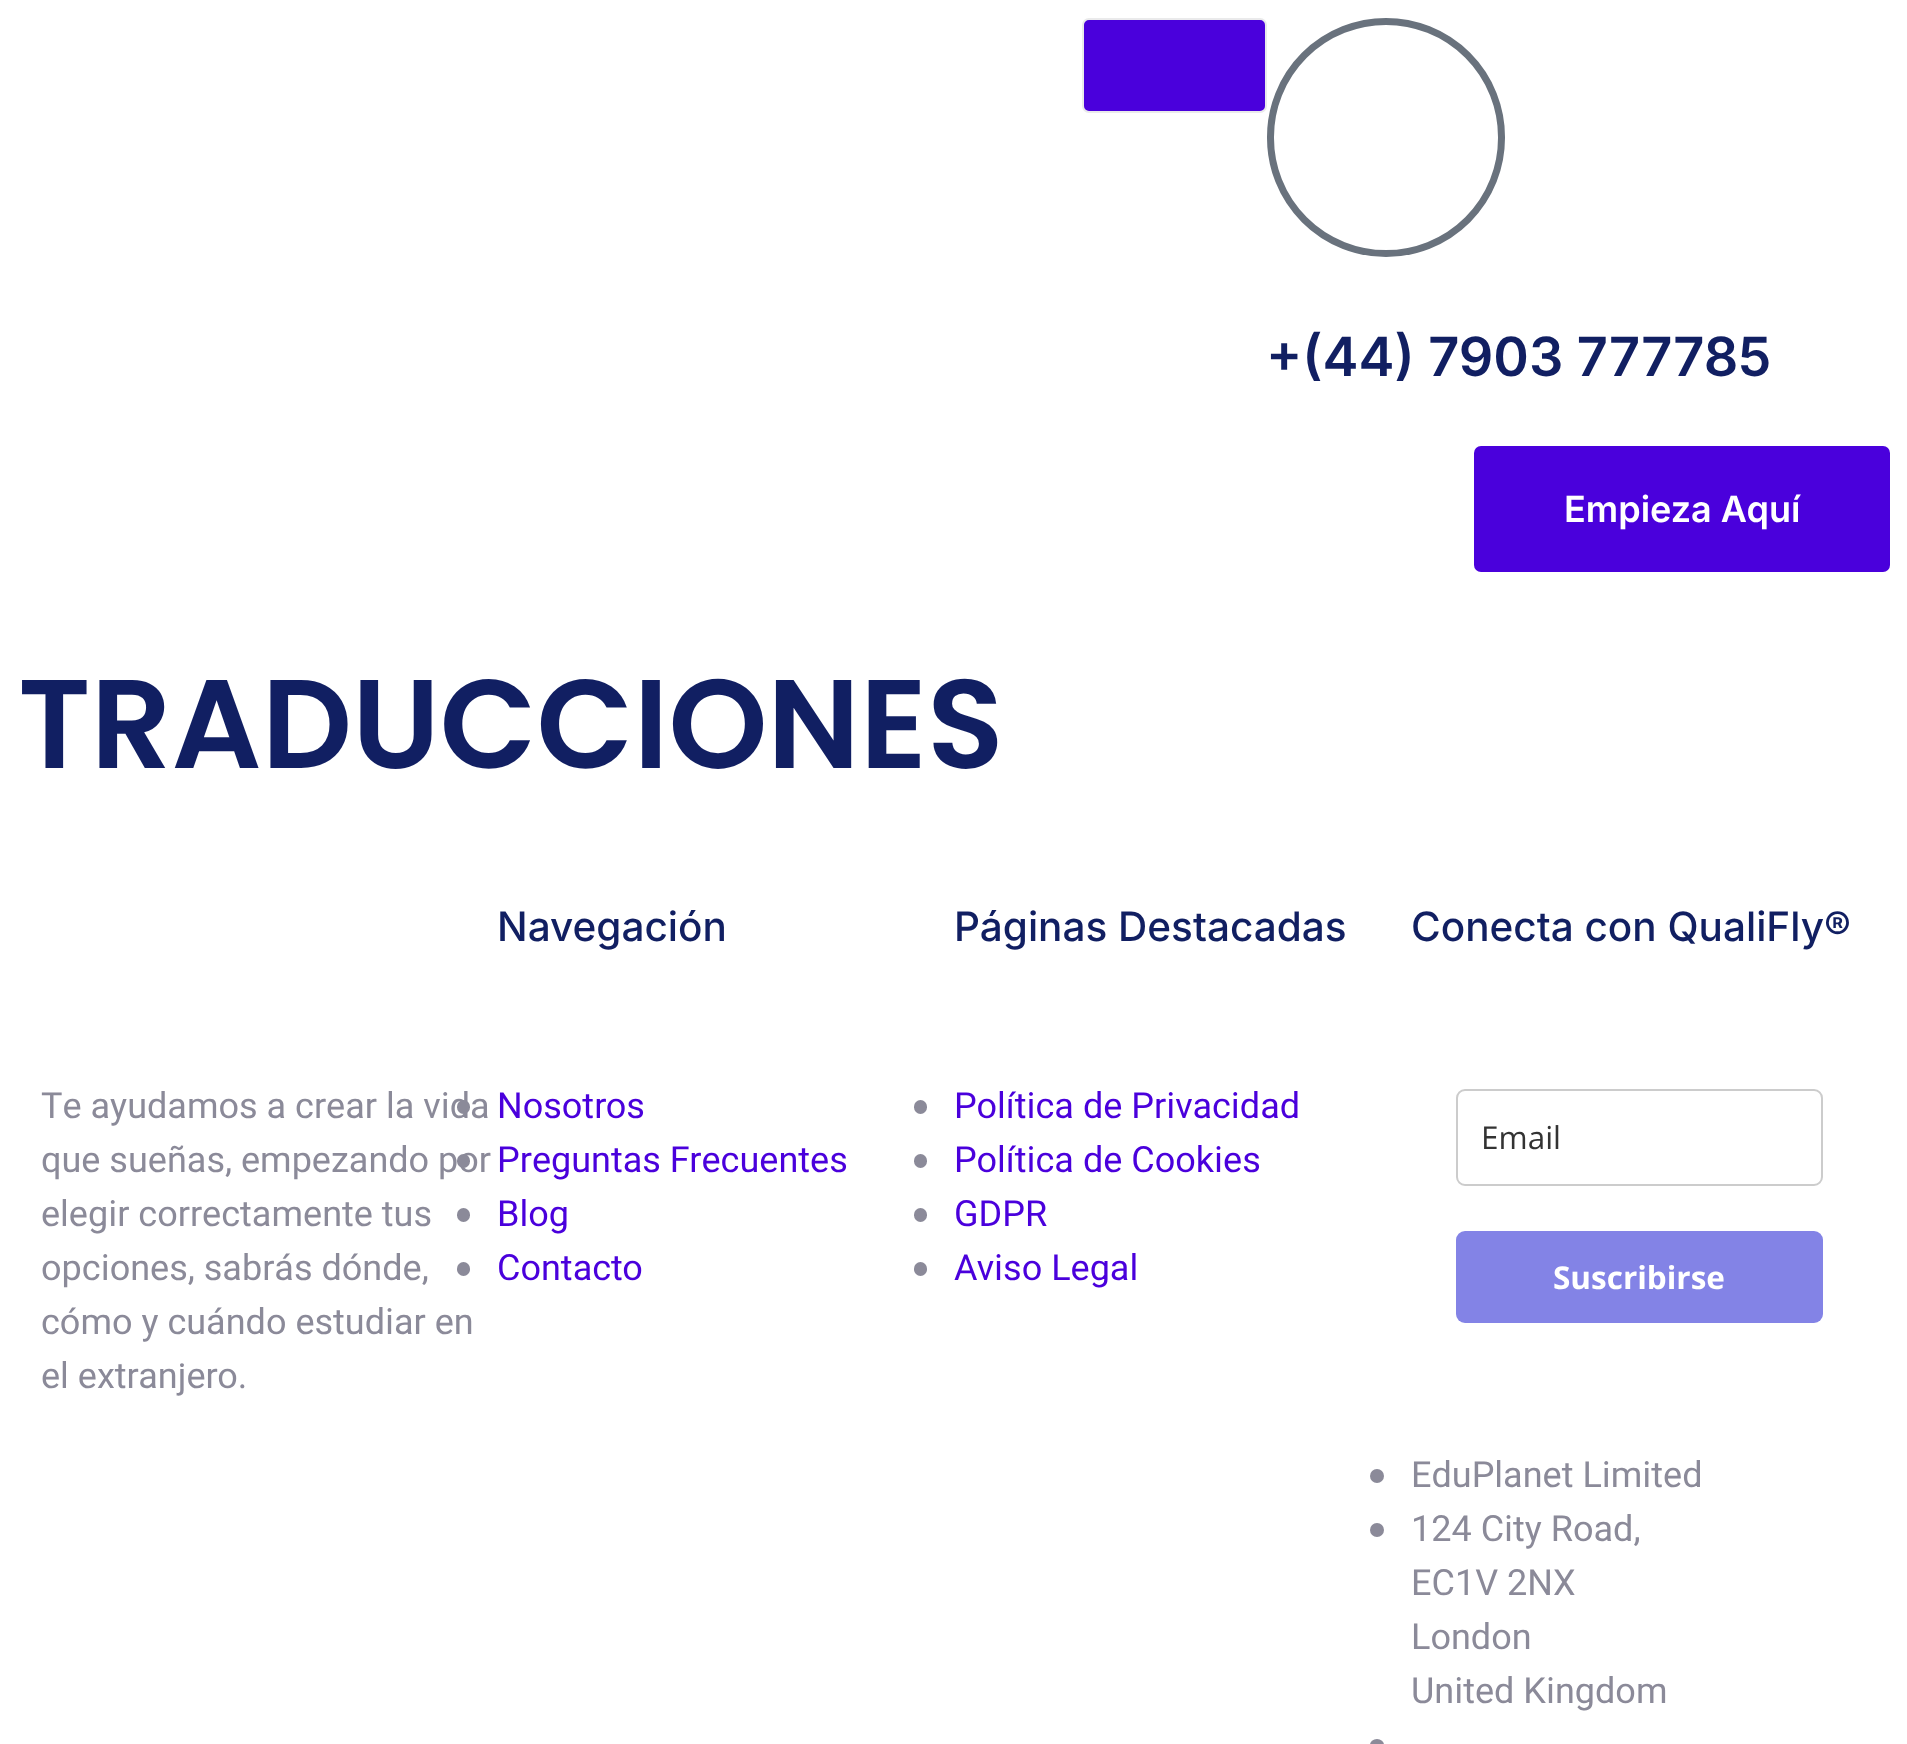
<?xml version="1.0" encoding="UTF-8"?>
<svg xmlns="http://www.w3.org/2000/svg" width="1907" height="1744">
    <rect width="100%" height="100%" fill="#FFFFFF"/>
    <rect x="1083" y="19" width="183" height="93" rx="6" fill="#4A00DC" stroke="#EAEAEB" stroke-width="2"/>
    <rect x="1270.5" y="21.5" width="231" height="232" rx="115.5" fill="none" stroke="#69727D" stroke-width="7"/>
    <text x="1266" y="376" font-family="Inter" font-size="54" font-weight="600" fill="#111F62">+(44) 7903 777785</text>
    <rect x="1474" y="446" width="416" height="126" rx="7" fill="#4A00DC"/>
    <text x="1564" y="522" font-family="Inter" font-size="36" font-weight="600" fill="#FFFFFF">Empieza Aquí</text>
    <text x="18" y="768" font-family="Poppins" font-size="126" font-weight="600" fill="#111F62">TRADUCCIONES</text>
    <text font-family="Heebo" font-size="36" fill="#8B8A99">
        <tspan x="41" y="1118">Te ayudamos a crear la vida</tspan>
        <tspan x="41" y="1172">que sueñas, empezando por</tspan>
        <tspan x="41" y="1226">elegir correctamente tus</tspan>
        <tspan x="41" y="1280">opciones, sabrás dónde,</tspan>
        <tspan x="41" y="1334">cómo y cuándo estudiar en</tspan>
        <tspan x="41" y="1388">el extranjero.</tspan>
    </text>
    <text x="497" y="941" font-family="Inter" font-size="40.5" font-weight="500" fill="#111F62">Navegación</text>
    <rect x="457" y="1100" width="13" height="14" rx="6.5" fill="#8B8A99"/>
    <text x="497" y="1118" font-family="Heebo" font-size="36" fill="#4A00DC">Nosotros</text>
    <rect x="457" y="1154" width="13" height="14" rx="6.5" fill="#8B8A99"/>
    <text x="497" y="1172" font-family="Heebo" font-size="36" fill="#4A00DC">Preguntas Frecuentes</text>
    <rect x="457" y="1208" width="13" height="14" rx="6.5" fill="#8B8A99"/>
    <text x="497" y="1226" font-family="Heebo" font-size="36" fill="#4A00DC">Blog</text>
    <rect x="457" y="1262" width="13" height="14" rx="6.5" fill="#8B8A99"/>
    <text x="497" y="1280" font-family="Heebo" font-size="36" fill="#4A00DC">Contacto</text>
    <text x="954" y="941" font-family="Inter" font-size="40.5" font-weight="500" fill="#111F62">Páginas Destacadas</text>
    <rect x="914" y="1100" width="13" height="14" rx="6.5" fill="#8B8A99"/>
    <text x="954" y="1118" font-family="Heebo" font-size="36" fill="#4A00DC">Política de Privacidad</text>
    <rect x="914" y="1154" width="13" height="14" rx="6.5" fill="#8B8A99"/>
    <text x="954" y="1172" font-family="Heebo" font-size="36" fill="#4A00DC">Política de Cookies</text>
    <rect x="914" y="1208" width="13" height="14" rx="6.5" fill="#8B8A99"/>
    <text x="954" y="1226" font-family="Heebo" font-size="36" fill="#4A00DC">GDPR</text>
    <rect x="914" y="1262" width="13" height="14" rx="6.5" fill="#8B8A99"/>
    <text x="954" y="1280" font-family="Heebo" font-size="36" fill="#4A00DC">Aviso Legal</text>
    <text x="1411" y="941" font-family="Inter" font-size="40.5" font-weight="500" fill="#111F62">Conecta con QualiFly®</text>
    <rect x="1457" y="1090" width="365" height="95" rx="8" fill="none" stroke="#CCCCCC" stroke-width="2"/>
    <text x="1481" y="1149" font-family="Open Sans" font-size="31.5" fill="#333333">Email</text>
    <rect x="1456" y="1231" width="367" height="92" rx="9" fill="#8383E6"/>
    <text x="1553" y="1289" font-family="Open Sans" font-size="31.5" font-weight="700" fill="#FFFFFF">Suscribirse</text>
    <circle cx="1377" cy="1476" r="7" fill="#8B8A99"/>
    <text x="1411" y="1487" font-family="Heebo" font-size="36" fill="#8B8A99">EduPlanet Limited</text>
    <circle cx="1377" cy="1530" r="7" fill="#8B8A99"/>
    <text font-family="Heebo" font-size="36" fill="#8B8A99">
        <tspan x="1411" y="1541">124 City Road,</tspan>
        <tspan x="1411" y="1595">EC1V 2NX</tspan>
        <tspan x="1411" y="1649">London</tspan>
        <tspan x="1411" y="1703">United Kingdom</tspan>
    </text>
    <rect x="1370" y="1739" width="14" height="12" rx="7" fill="#8B8A99"/>
</svg>
